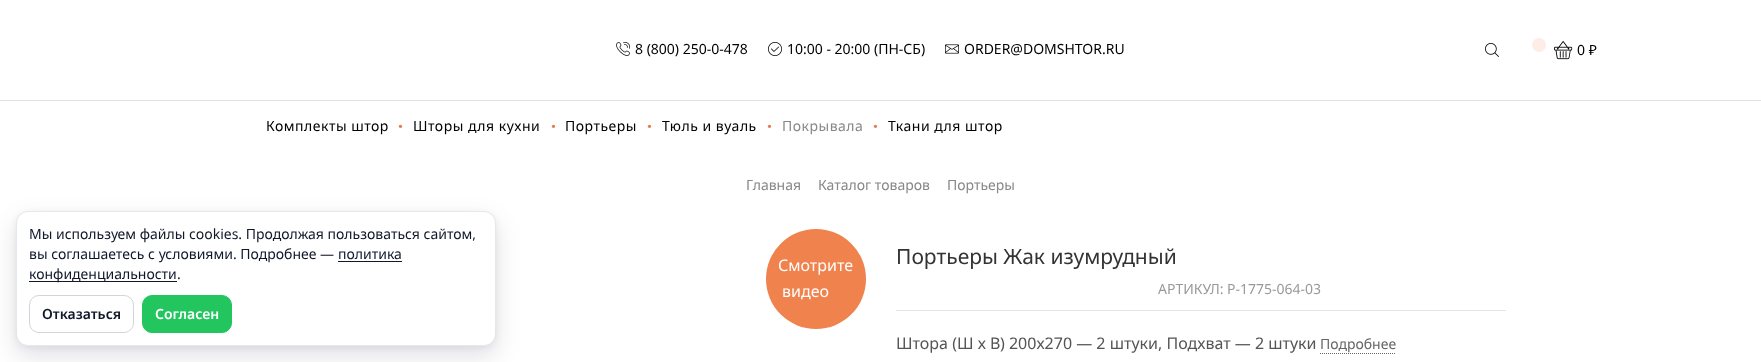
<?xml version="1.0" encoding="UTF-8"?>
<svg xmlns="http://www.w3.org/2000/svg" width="1761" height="362">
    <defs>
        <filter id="blur1" x="-50%" y="-200%" width="200%" height="500%"><feGaussianBlur stdDeviation="3"/></filter>
        <filter id="blur2" x="-50%" y="-200%" width="200%" height="500%"><feGaussianBlur stdDeviation="12"/></filter>
    </defs>
    <rect width="100%" height="100%" fill="#FFFFFF"/>
    <rect x="16" y="213" width="480" height="135" rx="12" fill="#101828" fill-opacity="0.06" filter="url(#blur1)"/>
    <rect x="16" y="221" width="480" height="135" rx="12" fill="#101828" fill-opacity="0.12" filter="url(#blur2)"/>
    <rect x="16.5" y="211.5" width="479" height="134" rx="11.5" fill="#FFFFFF" stroke="#E5E7EB"/>
    <text font-family="Noto Sans" font-size="14" fill="#0F172A">
        <tspan x="29" y="239">Мы используем файлы cookies. Продолжая пользоваться сайтом,</tspan>
        <tspan x="29" y="259">вы соглашаетесь с условиями. Подробнее —</tspan>
    </text>
    <text x="338" y="259" font-family="Noto Sans" font-size="14" fill="#0F172A">политика</text>
    <rect x="338" y="261" width="64" height="1" fill="#111827"/>
    <rect x="29" y="281" width="148" height="1" fill="#111827"/>
    <text x="29" y="279" font-family="Noto Sans" font-size="14" fill="#0F172A">конфиденциальности</text>
    <text x="177" y="279" font-family="Noto Sans" font-size="14" fill="#0F172A">.</text>
    <rect x="29.5" y="295.5" width="104" height="37" rx="9.5" fill="none" stroke="#D1D5DB"/>
    <text x="42" y="319" font-family="Noto Sans" font-size="14" font-weight="600" fill="#0F172A">Отказаться</text>
    <rect x="142.5" y="295.5" width="89" height="37" rx="9.5" fill="#22C55E" stroke="#22C55E"/>
    <text x="155" y="319" font-family="Noto Sans" font-size="14" font-weight="600" fill="#FFFFFF">Согласен</text>
    <image x="616" y="42" width="14" height="14" href="img_01.png"/>
    <text x="635" y="54" font-family="Noto Sans" font-size="14" fill="#000000">8 (800) 250-0-478</text>
    <image x="768" y="42" width="14" height="14" href="img_02.png"/>
    <text x="787" y="54" font-family="Noto Sans" font-size="14" fill="#000000">10:00 - 20:00 (ПН-СБ)</text>
    <image x="945" y="44" width="14" height="10" href="img_03.png"/>
    <text x="964" y="54" font-family="Noto Sans" font-size="14" fill="#000000">ORDER@DOMSHTOR.RU</text>
    <image x="1485" y="43" width="14" height="14" href="img_04.png"/>
    <circle cx="1539" cy="45" r="7" fill="#FDEDE6"/>
    <image x="1554" y="41" width="19" height="19" href="img_05.png"/>
    <text x="1577" y="55" font-family="Noto Sans" font-size="14" fill="#000000">0 ₽</text>
    <rect x="0" y="100" width="1761" height="1" fill="#E1E1E1"/>
    <text x="266" y="131" font-family="Noto Sans" font-size="14" letter-spacing="0.5" fill="#000000">Комплекты штор</text>
    <text x="398" y="131" font-family="Liberation Serif" font-size="14" fill="#DE7F53">•</text>
    <text x="413" y="131" font-family="Noto Sans" font-size="14" letter-spacing="0.5" fill="#000000">Шторы для кухни</text>
    <text x="551" y="131" font-family="Liberation Serif" font-size="14" fill="#DE7F53">•</text>
    <text x="565" y="131" font-family="Noto Sans" font-size="14" letter-spacing="0.5" fill="#000000">Портьеры</text>
    <text x="647" y="131" font-family="Liberation Serif" font-size="14" fill="#DE7F53">•</text>
    <text x="662" y="131" font-family="Noto Sans" font-size="14" letter-spacing="0.5" fill="#000000">Тюль и вуаль</text>
    <text x="767" y="131" font-family="Liberation Serif" font-size="14" fill="#DE7F53">•</text>
    <text x="782" y="131" font-family="Noto Sans" font-size="14" letter-spacing="0.5" fill="#888888">Покрывала</text>
    <text x="873" y="131" font-family="Liberation Serif" font-size="14" fill="#DE7F53">•</text>
    <text x="888" y="131" font-family="Noto Sans" font-size="14" letter-spacing="0.5" fill="#000000">Ткани для штор</text>
    <text x="746" y="190" font-family="Noto Sans" font-size="14" fill="#888888">Главная</text>
    <text x="818" y="190" font-family="Noto Sans" font-size="14" fill="#888888">Каталог товаров</text>
    <text x="947" y="190" font-family="Noto Sans" font-size="14" fill="#888888">Портьеры</text>
    <circle cx="816" cy="279" r="50" fill="#EF824D"/>
    <text x="778" y="271" font-family="Noto Sans" font-size="16" fill="#FFFFFF">Смотрите</text>
    <text x="782" y="297" font-family="Noto Sans" font-size="16" fill="#FFFFFF">видео</text>
    <text x="896" y="264" font-family="Noto Sans" font-size="21" fill="#333333">Портьеры Жак изумрудный</text>
    <rect x="896" y="310" width="610" height="1" fill="#E5E5E5"/>
    <text x="1158" y="294" font-family="Noto Sans" font-size="14" fill="#999999">АРТИКУЛ:</text>
    <text x="1227" y="294" font-family="Noto Sans" font-size="14" fill="#999999">P-1775-064-03</text>
    <text x="896" y="349" font-family="Noto Sans" font-size="16" fill="#555555">Штора (Ш х В) 200х270 — 2 штуки, Подхват — 2 штуки</text>
    <text x="1320" y="349" font-family="Noto Sans" font-size="14" fill="#666666">Подробнее</text>
    <path d="M 1320 353.5 H 1396" fill="none" stroke="#666666" stroke-dasharray="1 1"/>
</svg>
